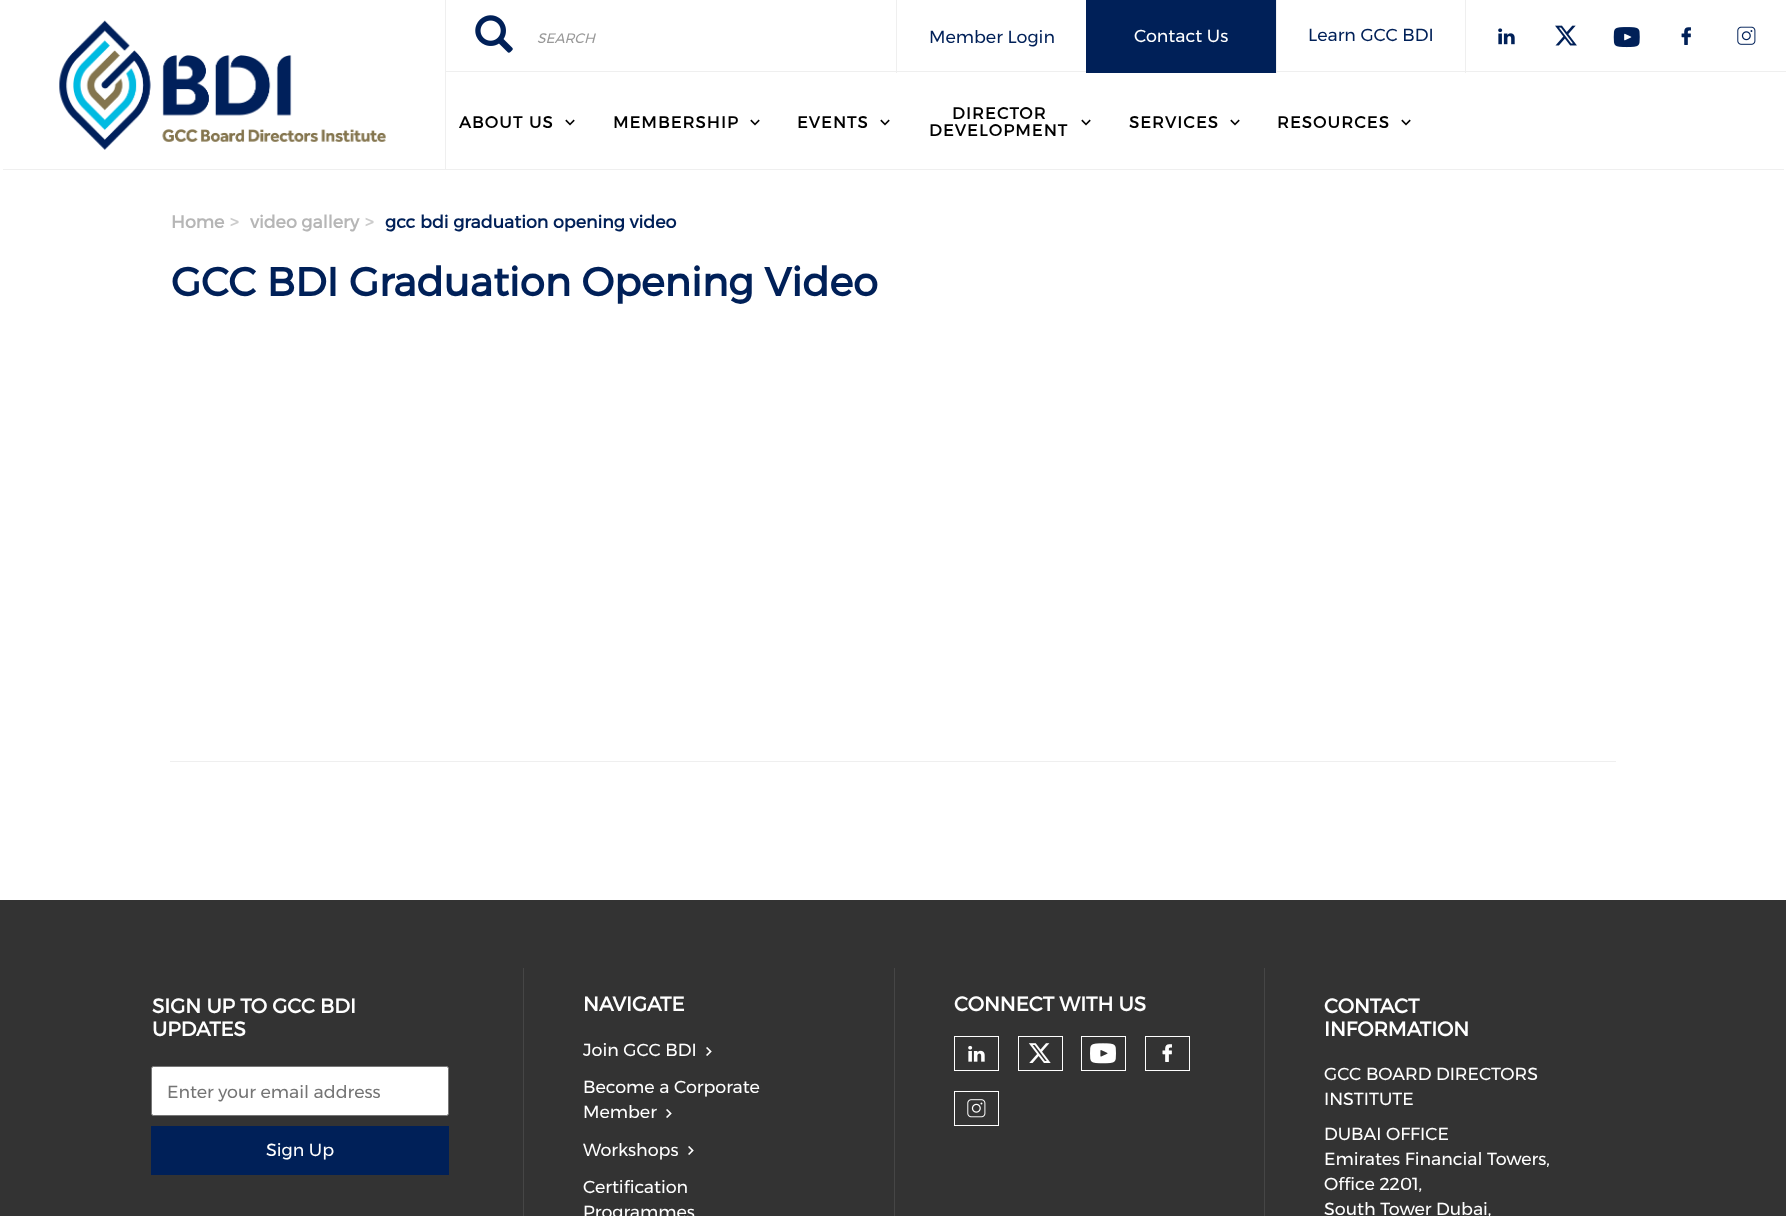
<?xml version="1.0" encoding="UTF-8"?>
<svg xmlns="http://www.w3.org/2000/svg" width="1786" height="1216">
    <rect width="100%" height="100%" fill="#FFFFFF"/>
    <rect x="3" y="169" width="1781" height="1" fill="#EFEFEF"/>
    <rect x="445" y="0" width="1" height="170" fill="#EFEFEF"/>
    <image x="59" y="20" width="327" height="130" href="img_01.png"/>
    <rect x="446" y="71" width="1340" height="1" fill="#EFEFEF"/>
    <image x="475" y="15" width="38" height="38" href="img_02.png"/>
    <text x="537" y="43" font-family="Montserrat" font-size="13.75" font-style="italic" fill="#999999">SEARCH</text>
    <rect x="897" y="71" width="189" height="1" fill="#FFFFFF"/>
    <rect x="896" y="71" width="190" height="1" fill="#EFEFEF"/>
    <rect x="896" y="0" width="1" height="73" fill="#EFEFEF"/>
    <text x="929" y="43" font-family="Montserrat" font-size="17.5" fill="#002058">Member Login</text>
    <rect x="1086" y="0" width="190" height="73" fill="#002058"/>
    <text x="1134" y="42" font-family="Montserrat" font-size="17.5" fill="#FFFFFF">Contact Us</text>
    <rect x="1277" y="71" width="188" height="1" fill="#FFFFFF"/>
    <rect x="1465" y="0" width="1" height="73" fill="#EFEFEF"/>
    <rect x="1276" y="71" width="190" height="1" fill="#EFEFEF"/>
    <rect x="1276" y="0" width="1" height="73" fill="#EFEFEF"/>
    <text x="1308" y="41" font-family="Montserrat" font-size="17.5" fill="#002058">Learn GCC BDI</text>
    <image x="1498" y="28" width="17" height="17" href="img_03.png"/>
    <image x="1555" y="25" width="22" height="21" href="img_04.png"/>
    <image x="1613" y="27" width="27" height="21" href="img_05.png"/>
    <text x="1670" y="50" font-family="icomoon" font-size="32" fill="#002058">3</text>
    <image x="1737" y="26" width="19" height="19" href="img_06.png"/>
    <text x="459" y="128" font-family="Montserrat" font-size="16.25" font-weight="700" letter-spacing="1.25" fill="#000000">ABOUT US</text>
    <text x="560" y="131" font-family="icomoon" font-size="20" letter-spacing="1.25" fill="#000000">9</text>
    <text x="613" y="128" font-family="Montserrat" font-size="16.25" font-weight="700" letter-spacing="1.25" fill="#000000">MEMBERSHIP</text>
    <text x="745" y="131" font-family="icomoon" font-size="20" letter-spacing="1.25" fill="#000000">9</text>
    <text x="797" y="128" font-family="Montserrat" font-size="16.25" font-weight="700" letter-spacing="1.25" fill="#000000">EVENTS</text>
    <text x="875" y="131" font-family="icomoon" font-size="20" letter-spacing="1.25" fill="#000000">9</text>
    <text x="952" y="119" font-family="Montserrat" font-size="16.25" font-weight="700" letter-spacing="1.25" fill="#000000">DIRECTOR</text>
    <text x="1076" y="131" font-family="icomoon" font-size="20" letter-spacing="1.25" fill="#000000">9</text>
    <text x="929" y="136" font-family="Montserrat" font-size="16.25" font-weight="700" letter-spacing="1.25" fill="#000000">DEVELOPMENT</text>
    <text x="1129" y="128" font-family="Montserrat" font-size="16.25" font-weight="700" letter-spacing="1.25" fill="#000000">SERVICES</text>
    <text x="1225" y="131" font-family="icomoon" font-size="20" letter-spacing="1.25" fill="#000000">9</text>
    <text x="1277" y="128" font-family="Montserrat" font-size="16.25" font-weight="700" letter-spacing="1.25" fill="#000000">RESOURCES</text>
    <text x="1396" y="131" font-family="icomoon" font-size="20" letter-spacing="1.25" fill="#000000">9</text>
    <text x="171" y="228" font-family="Montserrat" font-size="17.5" font-weight="700" fill="#B6B6B6">Home</text>
    <text x="230" y="228" font-family="Montserrat" font-size="17.5" font-weight="700" fill="#CCCCCC">&gt;</text>
    <text x="250" y="228" font-family="Montserrat" font-size="17.5" font-weight="700" fill="#B6B6B6">video gallery</text>
    <text x="365" y="228" font-family="Montserrat" font-size="17.5" font-weight="700" fill="#CCCCCC">&gt;</text>
    <text x="385" y="228" font-family="Montserrat" font-size="17.5" font-weight="700" fill="#002058">gcc bdi graduation opening video</text>
    <text x="171" y="296" font-family="Montserrat" font-size="40" font-weight="700" fill="#002058">GCC BDI Graduation Opening Video</text>
    <rect x="170" y="761" width="1446" height="1" fill="#EFEFEF"/>
    <rect x="0" y="900" width="1786" height="316" fill="#333333"/>
    <text font-family="Montserrat" font-size="20" font-weight="700" fill="#FFFFFF">
        <tspan x="152" y="1013">SIGN UP TO GCC BDI</tspan>
        <tspan x="152" y="1036">UPDATES</tspan>
    </text>
    <rect x="151.5" y="1066.5" width="297" height="49" rx="2" fill="#FFFFFF" stroke="#767676"/>
    <text x="167" y="1098" font-family="Montserrat" font-size="17.5" fill="#757575">Enter your email address</text>
    <rect x="151" y="1126" width="298" height="49" fill="#002058"/>
    <text x="266" y="1156" font-family="Montserrat" font-size="17.5" fill="#FFFFFF">Sign Up</text>
    <rect x="523" y="968" width="1" height="248" fill="#464646"/>
    <text x="583" y="1011" font-family="Montserrat" font-size="20" font-weight="700" fill="#FFFFFF">NAVIGATE</text>
    <text x="583" y="1056" font-family="Montserrat" font-size="17.5" fill="#FFFFFF">Join GCC BDI</text>
    <text x="717" y="1061" transform="rotate(-90 717 1061)" font-family="icomoon" font-size="19" fill="#FFFFFF">9</text>
    <text font-family="Montserrat" font-size="17.5" fill="#FFFFFF">
        <tspan x="583" y="1093">Become a Corporate</tspan>
        <tspan x="583" y="1118">Member</tspan>
    </text>
    <text x="677" y="1123" transform="rotate(-90 677 1123)" font-family="icomoon" font-size="19" fill="#FFFFFF">9</text>
    <text x="583" y="1156" font-family="Montserrat" font-size="17.5" fill="#FFFFFF">Workshops</text>
    <text x="699" y="1160" transform="rotate(-90 699 1160)" font-family="icomoon" font-size="19" fill="#FFFFFF">9</text>
    <text font-family="Montserrat" font-size="17.5" fill="#FFFFFF">
        <tspan x="583" y="1193">Certification</tspan>
        <tspan x="583" y="1218">Programmes</tspan>
    </text>
    <rect x="894" y="968" width="1" height="248" fill="#464646"/>
    <text x="954" y="1011" font-family="Montserrat" font-size="20" font-weight="700" fill="#FFFFFF">CONNECT WITH US</text>
    <rect x="954.5" y="1036.5" width="44" height="34" fill="none" stroke="#FFFFFF"/>
    <image x="968" y="1045" width="17" height="17" href="img_07.png"/>
    <rect x="1018.5" y="1036.5" width="44" height="34" fill="none" stroke="#FFFFFF"/>
    <image x="1028" y="1043" width="23" height="20" href="img_08.png"/>
    <rect x="1081.5" y="1036.5" width="44" height="34" fill="none" stroke="#FFFFFF"/>
    <image x="1090" y="1043" width="26" height="21" href="img_09.png"/>
    <rect x="1145.5" y="1036.5" width="44" height="34" fill="none" stroke="#FFFFFF"/>
    <text x="1151" y="1067" font-family="icomoon" font-size="32" fill="#FFFFFF">3</text>
    <rect x="954.5" y="1091.5" width="44" height="34" fill="none" stroke="#FFFFFF"/>
    <image x="967" y="1099" width="19" height="19" href="img_10.png"/>
    <rect x="1264" y="968" width="1" height="248" fill="#464646"/>
    <text font-family="Montserrat" font-size="20" font-weight="700" fill="#FFFFFF">
        <tspan x="1324" y="1013">CONTACT</tspan>
        <tspan x="1324" y="1036">INFORMATION</tspan>
    </text>
    <text font-family="Montserrat" font-size="17.5" fill="#FFFFFF">
        <tspan x="1324" y="1080">GCC BOARD DIRECTORS</tspan>
        <tspan x="1324" y="1105">INSTITUTE</tspan>
    </text>
    <text font-family="Montserrat" font-size="17.5" fill="#FFFFFF">
        <tspan x="1324" y="1140">DUBAI OFFICE</tspan>
        <tspan x="1324" y="1165">Emirates Financial Towers,</tspan>
        <tspan x="1324" y="1190">Office 2201,</tspan>
        <tspan x="1324" y="1215">South Tower Dubai,</tspan>
    </text>
</svg>
